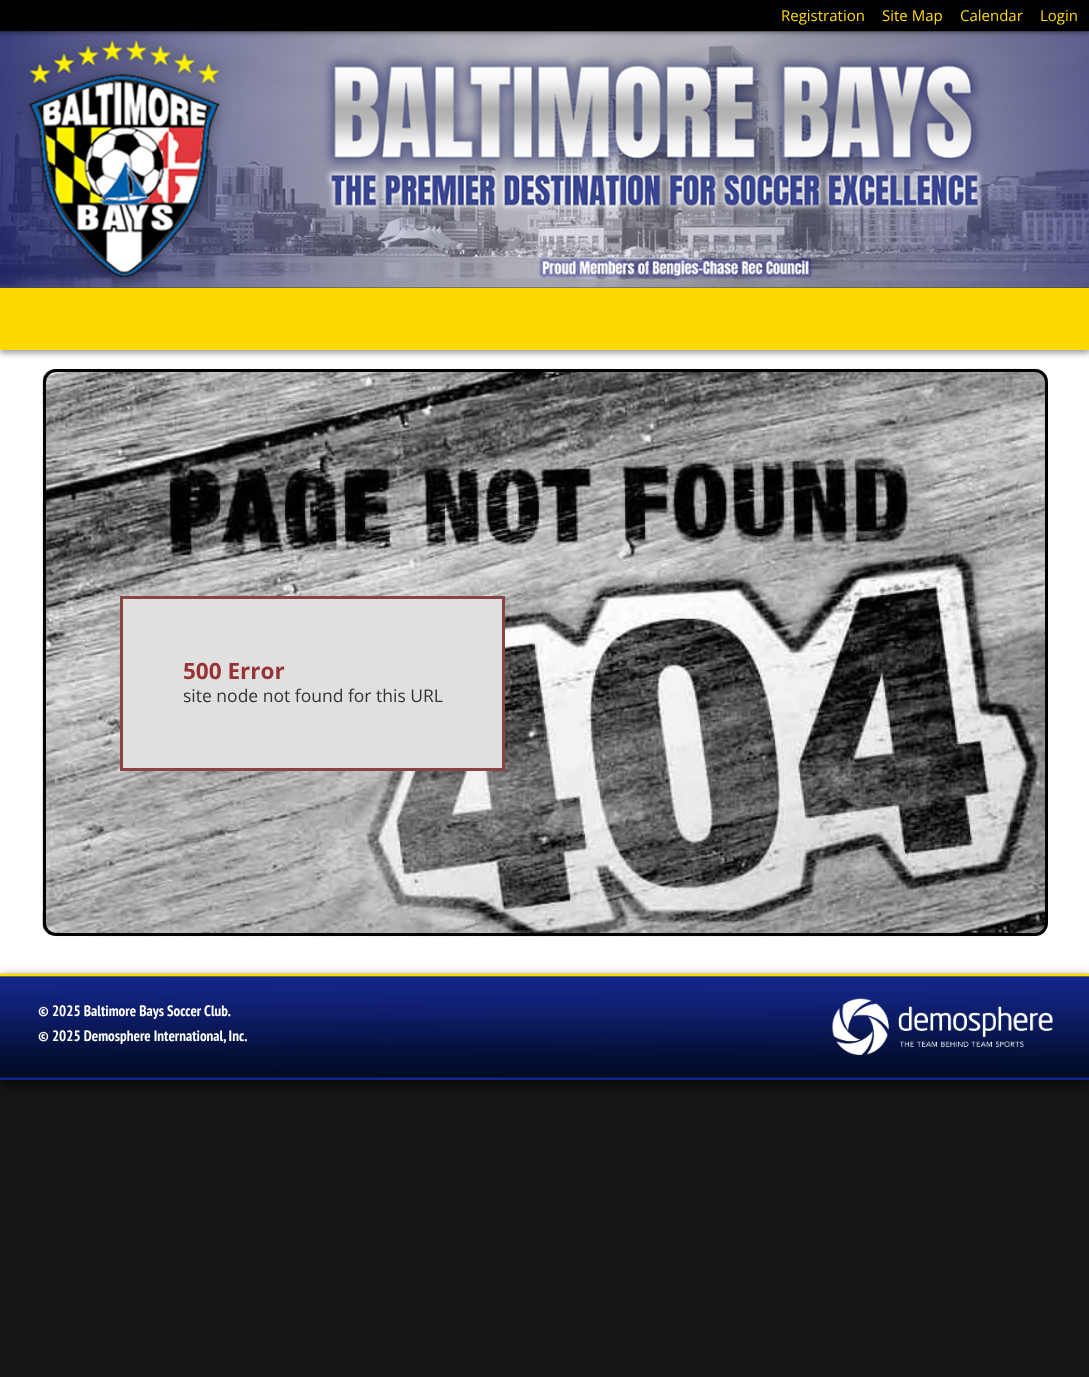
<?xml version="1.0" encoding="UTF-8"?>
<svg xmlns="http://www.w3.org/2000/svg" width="1089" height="1377">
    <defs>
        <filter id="blur1" x="-50%" y="-200%" width="200%" height="500%"><feGaussianBlur stdDeviation="3"/></filter>
        <filter id="blur2" x="-50%" y="-200%" width="200%" height="500%"><feGaussianBlur stdDeviation="6"/></filter>
    </defs>
    <rect width="100%" height="100%" fill="#151515"/>
    <rect x="0" y="350" width="1089" height="624" fill="#FFFFFF"/>
    <rect x="0" y="290" width="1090" height="63" fill="#000000" fill-opacity="0.4" filter="url(#blur1)"/>
    <image x="0" y="287" width="1089" height="1" href="img_03.png"/>
    <image x="0" y="287" width="1089" height="1" href="img_01.png"/>
    <image x="0" y="31" width="1089" height="257" href="img_02.png"/>
    <rect x="0" y="0" width="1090" height="31" fill="#000000" fill-opacity="0.75" filter="url(#blur1)"/>
    <rect x="0" y="0" width="1089" height="31" fill="#000000"/>
    <text x="781" y="21" font-family="Open Sans" font-size="15" fill="#FFD800">Registration</text>
    <text x="882" y="21" font-family="Open Sans" font-size="15" fill="#FFD800">Site Map</text>
    <text x="960" y="21" font-family="Open Sans" font-size="15" fill="#FFD800">Calendar</text>
    <text x="1040" y="21" font-family="Open Sans" font-size="15" fill="#FFD800">Login</text>
    <rect x="0" y="288" width="1089" height="62" fill="#FFD800"/>
    <image x="42" y="368" width="1006" height="569" href="img_04.png"/>
    <rect x="44.5" y="370.5" width="1002" height="564" rx="11.5" fill="none" stroke="#000000" stroke-width="3"/>
    <rect x="121.5" y="597.5" width="382" height="172" fill="#E0E0E0" stroke="#884444" stroke-width="3"/>
    <text x="183" y="679" font-family="Open Sans" font-size="22.5" font-weight="700" fill="#993333">500 Error</text>
    <text x="183" y="702" font-family="Open Sans" font-size="17.5" fill="#333333">site node not found for this URL</text>
    <rect x="0" y="978" width="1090" height="106" fill="#000000" fill-opacity="0.65" filter="url(#blur2)"/>
    <image x="0" y="973" width="1089" height="1" href="img_05.png"/>
    <image x="0" y="973" width="1089" height="107" href="img_06.png"/>
    <text font-family="PT Sans Narrow" font-size="15" font-weight="700" fill="#FFFFFF">
        <tspan x="38" y="1016">© 2025 Baltimore Bays Soccer Club.</tspan>
        <tspan x="38" y="1041">© 2025 Demosphere International, Inc.</tspan>
    </text>
    <image x="832" y="998" width="221" height="57" href="img_07.png"/>
</svg>
